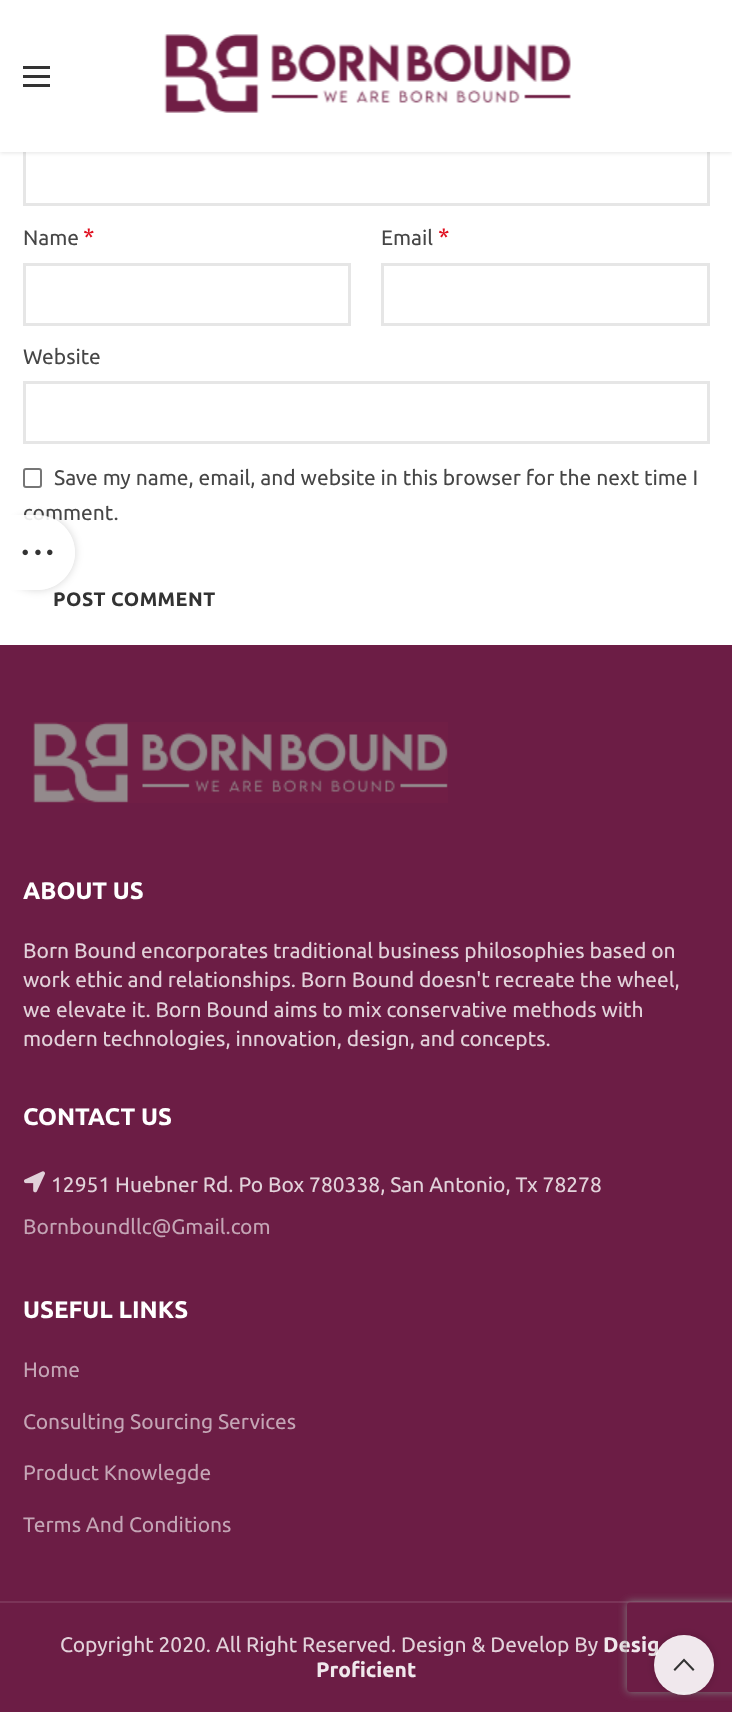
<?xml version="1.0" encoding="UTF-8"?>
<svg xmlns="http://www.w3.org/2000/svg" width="732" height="1712">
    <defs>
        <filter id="blur1" x="-50%" y="-200%" width="200%" height="500%"><feGaussianBlur stdDeviation="2"/></filter>
        <clipPath id="clip1"><path d="M 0 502 H 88 V 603 H 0 Z M 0 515 H 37.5 C 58 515 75 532 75 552.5 C 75 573 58 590 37.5 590 H 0 Z" clip-rule="evenodd"/></clipPath>
        <filter id="blur2" x="-50%" y="-200%" width="200%" height="500%"><feGaussianBlur stdDeviation="4"/></filter>
        <clipPath id="clip2"><path d="M 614 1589 H 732 V 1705 H 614 Z M 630 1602 H 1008 C 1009.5 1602 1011 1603.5 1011 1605 V 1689 C 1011 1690.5 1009.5 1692 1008 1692 H 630 C 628.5 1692 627 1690.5 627 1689 V 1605 C 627 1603.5 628.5 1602 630 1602 Z" clip-rule="evenodd"/></clipPath>
        <clipPath id="clip3"><path d="M 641 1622 H 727 V 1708 H 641 Z M 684 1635 C 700.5 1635 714 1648.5 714 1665 C 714 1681.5 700.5 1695 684 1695 C 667.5 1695 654 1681.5 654 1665 C 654 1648.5 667.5 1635 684 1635 Z" clip-rule="evenodd"/></clipPath>
    </defs>
    <rect width="100%" height="100%" fill="#FFFFFF"/>
    <rect x="24.5" y="-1.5" width="684" height="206" fill="none" stroke="#E6E6E6" stroke-width="3"/>
    <rect x="0" y="2" width="732" height="151" fill="#000000" fill-opacity="0.1" filter="url(#blur1)"/>
    <rect x="0" y="0" width="732" height="152" fill="#FFFFFF"/>
    <rect x="23" y="75" width="27" height="3" fill="#333333"/>
    <rect x="23" y="66" width="27" height="3" fill="#333333"/>
    <rect x="23" y="84" width="27" height="3" fill="#333333"/>
    <image x="164" y="34" width="407" height="79" href="img_01.png"/>
    <text x="23" y="245" font-family="Ubuntu" font-size="21" fill="#464646">Name</text>
    <text x="83" y="245" font-family="Ubuntu" font-size="24" fill="#E01020">*</text>
    <rect x="24.5" y="264.5" width="325" height="60" fill="none" stroke="#E6E6E6" stroke-width="3"/>
    <text x="381" y="245" font-family="Ubuntu" font-size="21" fill="#464646">Email</text>
    <text x="438" y="245" font-family="Ubuntu" font-size="24" fill="#E01020">*</text>
    <rect x="382.5" y="264.5" width="326" height="60" fill="none" stroke="#E6E6E6" stroke-width="3"/>
    <text x="23" y="364" font-family="Ubuntu" font-size="21" fill="#464646">Website</text>
    <rect x="24.5" y="382.5" width="684" height="60" fill="none" stroke="#E6E6E6" stroke-width="3"/>
    <rect x="24" y="469" width="17" height="18" rx="2" fill="none" stroke="#767676" stroke-width="2"/>
    <text x="54" y="485" font-family="Ubuntu" font-size="21" fill="#464646">Save my name, email, and website in this browser for the next time I</text>
    <text x="23" y="520" font-family="Ubuntu" font-size="21" fill="#464646">comment.</text>
    <text x="53" y="606" font-family="Ubuntu" font-size="19.5" font-weight="700" letter-spacing="0.5" fill="#333333">POST COMMENT</text>
    <rect x="0" y="645" width="732" height="1067" fill="#6C1D45"/>
    <image x="33" y="722" width="415" height="81" href="img_02.png"/>
    <text x="23" y="899" font-family="Ubuntu" font-size="24" font-weight="700" fill="#FFFFFF">ABOUT US</text>
    <text font-family="Ubuntu" font-size="21" fill="#E2D2DA">
        <tspan x="23" y="958">Born Bound encorporates traditional business philosophies based on</tspan>
        <tspan x="23" y="987">work ethic and relationships. Born Bound doesn't recreate the wheel,</tspan>
        <tspan x="23" y="1017">we elevate it. Born Bound aims to mix conservative methods with</tspan>
        <tspan x="23" y="1046">modern technologies, innovation, design, and concepts.</tspan>
    </text>
    <text x="23" y="1125" font-family="Ubuntu" font-size="24" font-weight="700" fill="#FFFFFF">CONTACT US</text>
    <image x="24" y="1171" width="21" height="22" href="img_03.png"/>
    <text x="51" y="1192" font-family="Ubuntu" font-size="21" fill="#E2D2DA">12951 Huebner Rd. Po Box 780338, San Antonio, Tx 78278</text>
    <text x="23" y="1234" font-family="Ubuntu" font-size="21" fill="#C4A5B5">Bornboundllc@Gmail.com</text>
    <text x="23" y="1318" font-family="Ubuntu" font-size="24" font-weight="700" fill="#FFFFFF">USEFUL LINKS</text>
    <text x="23" y="1377" font-family="Ubuntu" font-size="21" fill="#C4A5B5">Home</text>
    <text x="23" y="1429" font-family="Ubuntu" font-size="21" fill="#C4A5B5">Consulting Sourcing Services</text>
    <text x="23" y="1480" font-family="Ubuntu" font-size="21" fill="#C4A5B5">Product Knowlegde</text>
    <text x="23" y="1532" font-family="Ubuntu" font-size="21" fill="#C4A5B5">Terms And Conditions</text>
    <rect x="0" y="1601" width="732" height="2" fill="#7B3458"/>
    <text x="60" y="1652" font-family="Ubuntu" font-size="21" fill="#E2D2DA">Copyright 2020. All Right Reserved. Design &amp; Develop By</text>
    <text x="603" y="1652" font-family="Ubuntu" font-size="21" font-weight="700" fill="#F0E8EC">Desig</text>
    <text x="316" y="1677" font-family="Ubuntu" font-size="21" font-weight="700" fill="#F0E8EC">Proficient</text>
    <g clip-path="url(#clip1)">
        <rect x="0" y="515" width="75" height="75" rx="37.5" fill="#000000" fill-opacity="0.17" filter="url(#blur2)"/>
    </g>
    <path d="M 0 515 H 37.5 C 58 515 75 532 75 552.5 C 75 573 58 590 37.5 590 H 0 Z" fill="#FFFFFF" fill-opacity="0.9"/>
    <image x="22" y="549" width="31" height="7" href="img_04.png"/>
    <g clip-path="url(#clip2)">
        <rect x="627" y="1602" width="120" height="90" rx="3" fill="#808080" filter="url(#blur2)"/>
    </g>
    <g clip-path="url(#clip3)">
        <rect x="654" y="1635" width="60" height="60" rx="30" fill="#000000" fill-opacity="0.17" filter="url(#blur2)"/>
    </g>
    <circle cx="684" cy="1665" r="30" fill="#FFFFFF" fill-opacity="0.9"/>
    <path d="M 684 1658.5 L 694.5 1669.5 L 693 1671 L 684 1661.5 L 675 1671 L 673.5 1669.5 Z" fill="#333333"/>
</svg>
